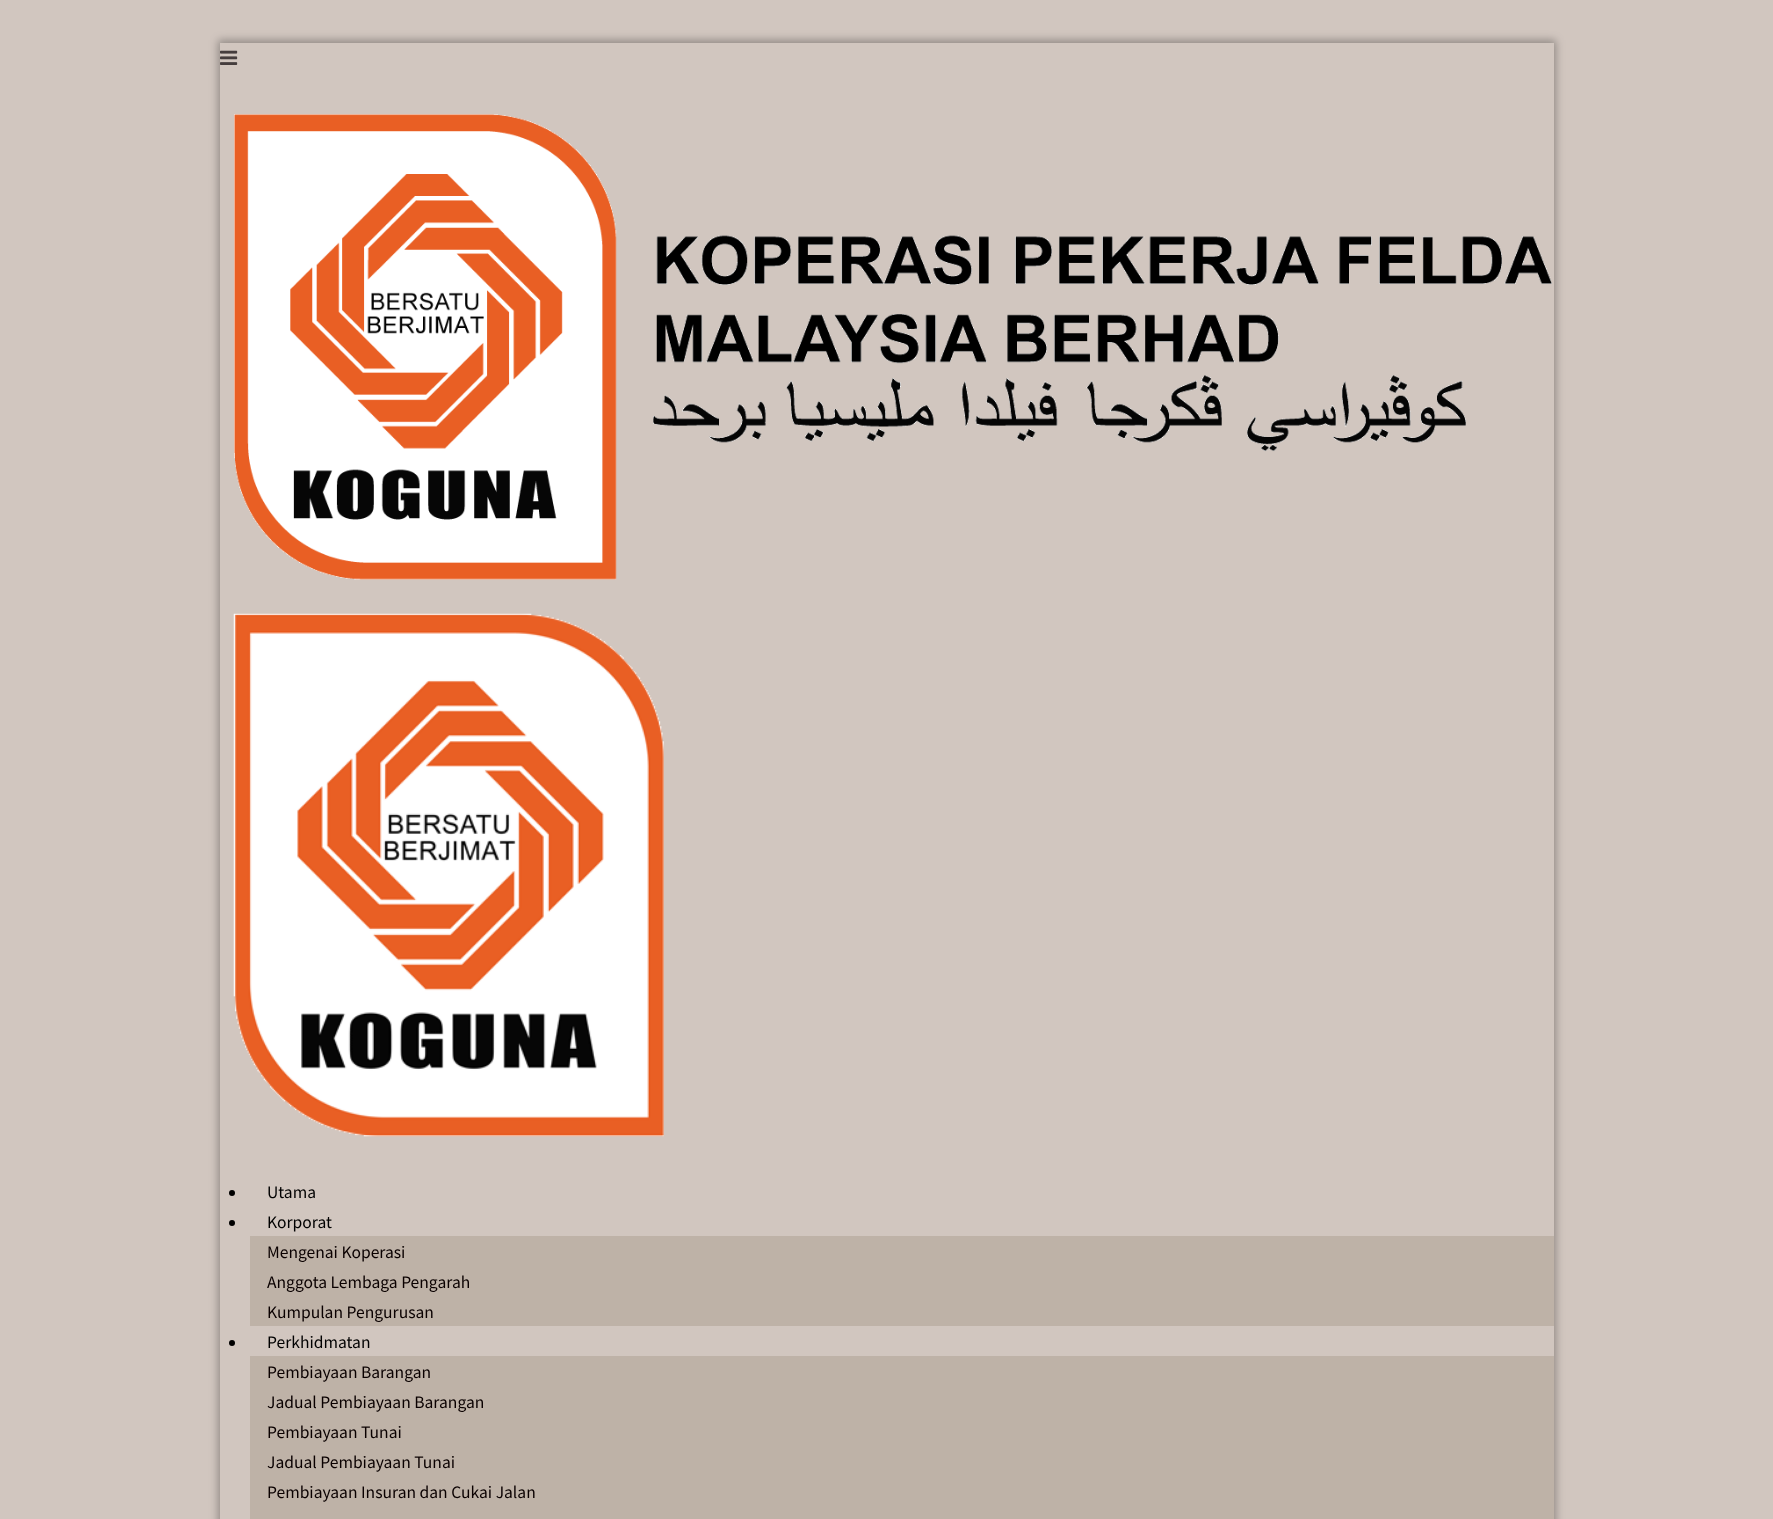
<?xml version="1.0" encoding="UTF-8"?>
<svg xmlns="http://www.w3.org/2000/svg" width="1773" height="1519">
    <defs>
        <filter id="blur1" x="-50%" y="-200%" width="200%" height="500%"><feGaussianBlur stdDeviation="4"/></filter>
    </defs>
    <rect width="100%" height="100%" fill="#D1C6BF"/>
    <rect x="218" y="40" width="1338" height="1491" fill="#000000" fill-opacity="0.3" filter="url(#blur1)"/>
    <rect x="220" y="43" width="1334" height="1476" fill="#D1C6BF"/>
    <image x="220" y="50" width="18" height="15" href="img_01.png"/>
    <image x="234" y="114" width="1318" height="466" href="img_02.png"/>
    <image x="233" y="613" width="431" height="524" href="img_03.png"/>
    <circle cx="232" cy="1193" r="3" fill="#000000"/>
    <text x="267" y="1198" font-family="Source Sans Pro" font-size="17.5" fill="#000000">Utama</text>
    <circle cx="232" cy="1223" r="3" fill="#000000"/>
    <text x="267" y="1228" font-family="Source Sans Pro" font-size="17.5" fill="#000000">Korporat</text>
    <rect x="250" y="1236" width="1304" height="90" fill="#BEB2A7"/>
    <text font-family="Source Sans Pro" font-size="17.5" fill="#0A0000">
        <tspan x="267" y="1258">Mengenai Koperasi</tspan>
        <tspan x="267" y="1288">Anggota Lembaga Pengarah</tspan>
        <tspan x="267" y="1318">Kumpulan Pengurusan</tspan>
    </text>
    <circle cx="232" cy="1343" r="3" fill="#000000"/>
    <text x="267" y="1348" font-family="Source Sans Pro" font-size="17.5" fill="#000000">Perkhidmatan</text>
    <rect x="250" y="1356" width="1304" height="163" fill="#BEB2A7"/>
    <text font-family="Source Sans Pro" font-size="17.5" fill="#0A0000">
        <tspan x="267" y="1378">Pembiayaan Barangan</tspan>
        <tspan x="267" y="1408">Jadual Pembiayaan Barangan</tspan>
        <tspan x="267" y="1438">Pembiayaan Tunai</tspan>
        <tspan x="267" y="1468">Jadual Pembiayaan Tunai</tspan>
        <tspan x="267" y="1498">Pembiayaan Insuran dan Cukai Jalan</tspan>
    </text>
</svg>
